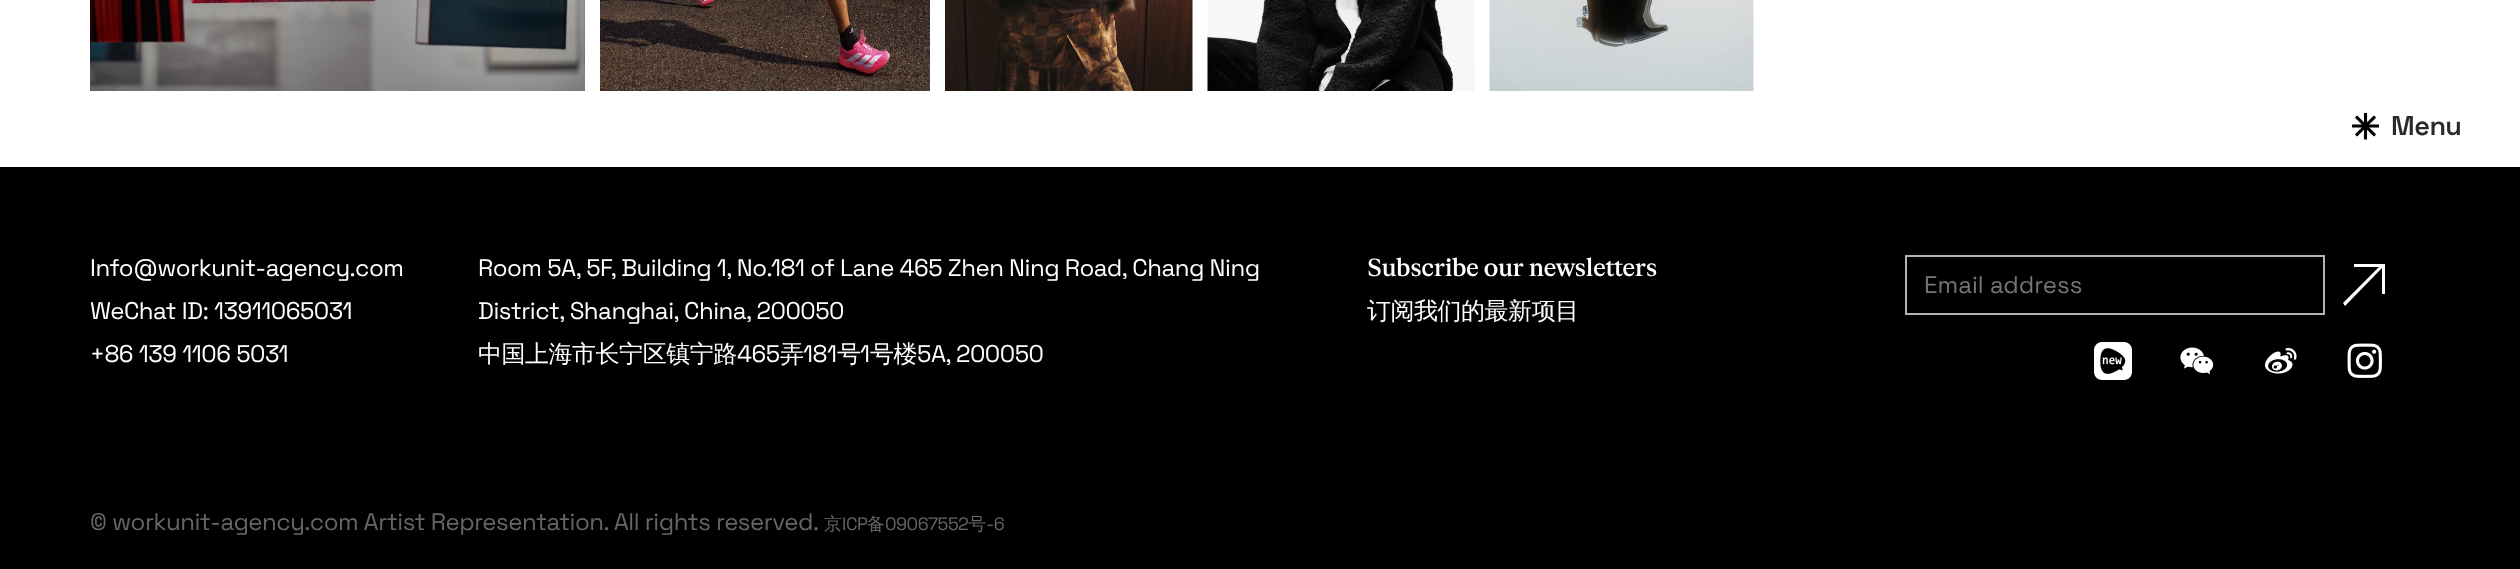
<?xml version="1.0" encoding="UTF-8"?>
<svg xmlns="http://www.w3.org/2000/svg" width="2520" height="569">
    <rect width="100%" height="100%" fill="#FFFFFF"/>
    <image x="90" y="0" width="495" height="91" href="img_01.png"/>
    <image x="600" y="0" width="330" height="91" href="img_02.png"/>
    <image x="945" y="0" width="248" height="91" href="img_03.png"/>
    <image x="1207" y="0" width="268" height="91" href="img_04.png"/>
    <image x="1489" y="0" width="265" height="91" href="img_05.png"/>
    <image x="2352" y="113" width="27" height="27" href="img_06.png"/>
    <text x="2391" y="135" font-family="Space Grotesk" font-size="27" font-weight="600" letter-spacing="-0.48" fill="#292B2C">Menu</text>
    <rect x="0" y="167" width="2520" height="402" fill="#000000"/>
    <text font-family="Space Grotesk" font-size="24" letter-spacing="-0.48" fill="#FFFFFF">
        <tspan x="90" y="276">Info@workunit-agency.com</tspan>
        <tspan x="90" y="319">WeChat ID: 13911065031</tspan>
        <tspan x="90" y="362">+86 139 1106 5031</tspan>
    </text>
    <text font-family="Space Grotesk" font-size="24" letter-spacing="-0.48" fill="#FFFFFF">
        <tspan x="478" y="276">Room 5A, 5F, Building 1, No.181 of Lane 465 Zhen Ning Road, Chang Ning</tspan>
        <tspan x="478" y="319">District, Shanghai, China, 200050</tspan>
    </text>
    <text x="478" y="362" font-family="WenQuanYi Zen Hei" font-size="24" font-weight="500" letter-spacing="-0.48" fill="#FFFFFF">中国上海市长宁区镇宁路</text>
    <text x="737" y="362" font-family="Space Grotesk" font-size="24" letter-spacing="-0.48" fill="#FFFFFF">465</text>
    <text x="780" y="362" font-family="WenQuanYi Zen Hei" font-size="24" font-weight="500" letter-spacing="-0.48" fill="#FFFFFF">弄</text>
    <text x="803" y="362" font-family="Space Grotesk" font-size="24" letter-spacing="-0.48" fill="#FFFFFF">181</text>
    <text x="837" y="362" font-family="WenQuanYi Zen Hei" font-size="24" font-weight="500" letter-spacing="-0.48" fill="#FFFFFF">号</text>
    <text x="860" y="362" font-family="Space Grotesk" font-size="24" letter-spacing="-0.48" fill="#FFFFFF">1</text>
    <text x="870" y="362" font-family="WenQuanYi Zen Hei" font-size="24" font-weight="500" letter-spacing="-0.48" fill="#FFFFFF">号楼</text>
    <text x="917" y="362" font-family="Space Grotesk" font-size="24" letter-spacing="-0.48" fill="#FFFFFF">5A, 200050</text>
    <text x="1367" y="276" font-family="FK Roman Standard" font-size="24" font-weight="500" letter-spacing="-0.48" fill="#FFFFFF">Subscribe our newsletters</text>
    <text x="1367" y="319" font-family="WenQuanYi Zen Hei" font-size="24" font-weight="500" letter-spacing="-0.48" fill="#FFFFFF">订阅我们的最新项目</text>
    <rect x="1906" y="256" width="418" height="58" fill="none" stroke="#B3B3B3" stroke-width="2"/>
    <text x="1924" y="293" font-family="Space Grotesk" font-size="24" fill="#757575">Email address</text>
    <path d="M 2343 303 L 2381 265 L 2383 267 L 2345 306 Z" fill="#FFFFFF"/>
    <rect x="2382" y="264" width="3" height="30" fill="#FFFFFF"/>
    <rect x="2354" y="264" width="31" height="3" fill="#FFFFFF"/>
    <image x="2094" y="342" width="38" height="38" href="img_07.png"/>
    <image x="2180" y="347" width="34" height="27" href="img_08.png"/>
    <image x="2264" y="347" width="33" height="27" href="img_09.png"/>
    <image x="2347" y="343" width="35" height="35" href="img_10.png"/>
    <text x="90" y="530" font-family="Space Grotesk" font-size="24" letter-spacing="-0.48" fill="#666666">© workunit-agency.com Artist Representation. All rights reserved.</text>
    <text x="824" y="530" font-family="WenQuanYi Zen Hei" font-size="18" font-weight="500" letter-spacing="-0.48" fill="#666666">京</text>
    <text x="842" y="530" font-family="Space Grotesk" font-size="18" letter-spacing="-0.48" fill="#666666">ICP</text>
    <text x="867" y="530" font-family="WenQuanYi Zen Hei" font-size="18" font-weight="500" letter-spacing="-0.48" fill="#666666">备</text>
    <text x="885" y="530" font-family="Space Grotesk" font-size="18" letter-spacing="-0.48" fill="#666666">09067552</text>
    <text x="968" y="530" font-family="WenQuanYi Zen Hei" font-size="18" font-weight="500" letter-spacing="-0.48" fill="#666666">号</text>
    <text x="986" y="530" font-family="Space Grotesk" font-size="18" letter-spacing="-0.48" fill="#666666">-6</text>
</svg>
